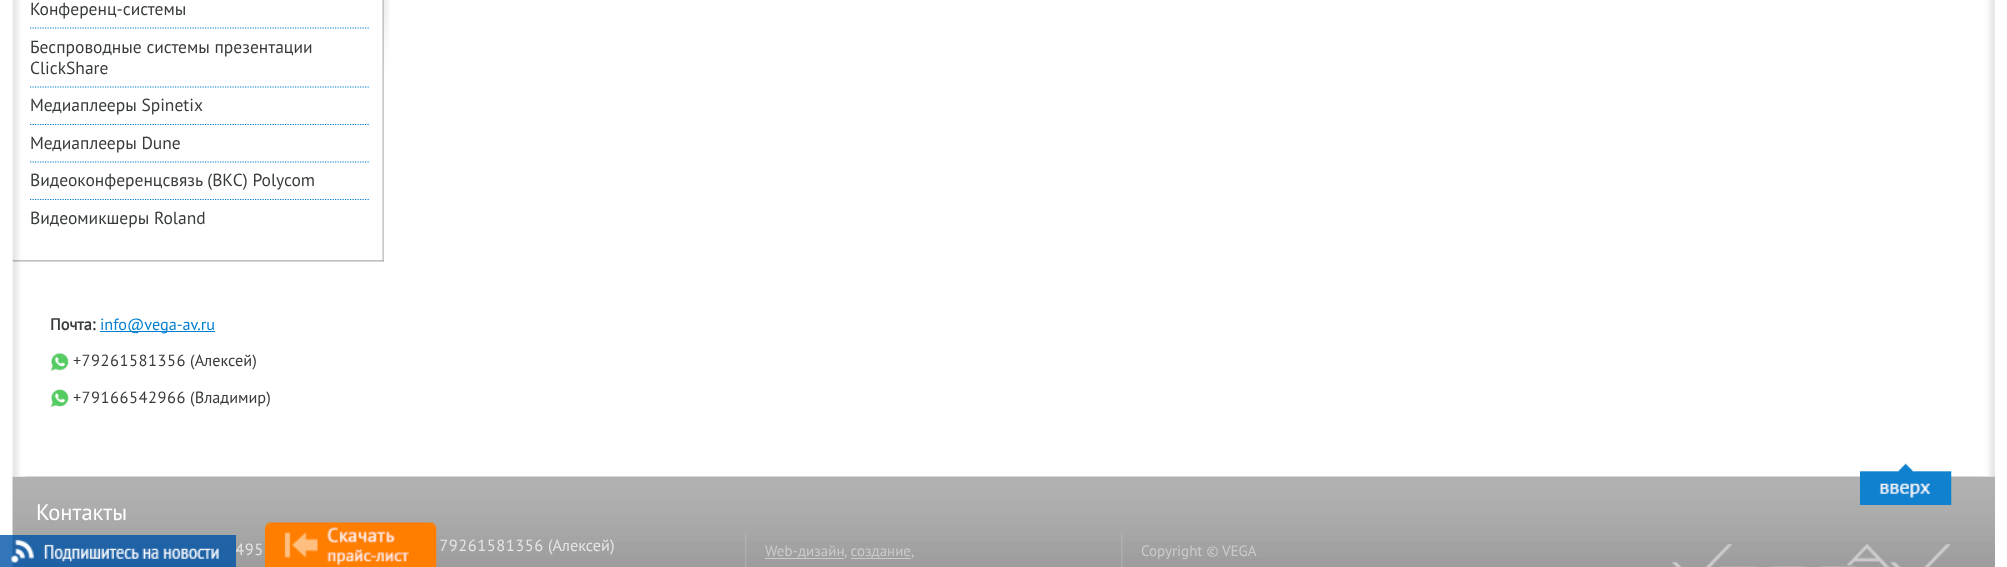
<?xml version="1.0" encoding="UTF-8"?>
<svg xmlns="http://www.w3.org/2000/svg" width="2007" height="567">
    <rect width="100%" height="100%" fill="#FFFFFF"/>
    <image x="12" y="476" width="1983" height="91" href="img_07.png"/>
    <image x="12" y="0" width="13" height="477" href="img_01.png"/>
    <image x="1982" y="0" width="13" height="477" href="img_02.png"/>
    <image x="382" y="0" width="8" height="262" href="img_03.png"/>
    <image x="12" y="260" width="372" height="2" href="img_04.png"/>
    <path d="M 30 28 H 370" fill="none" stroke="#007FD3" stroke-width="1.2" stroke-dasharray="1.25 1.25"/>
    <text x="30" y="15" font-family="PT Sans" font-size="17.5" fill="#383B3C">Конференц-системы</text>
    <path d="M 30 87 H 370" fill="none" stroke="#007FD3" stroke-width="1.2" stroke-dasharray="1.25 1.25"/>
    <text font-family="PT Sans" font-size="17.5" fill="#383B3C">
        <tspan x="30" y="53">Беспроводные системы презентации</tspan>
        <tspan x="30" y="74">ClickShare</tspan>
    </text>
    <path d="M 30 124.5 H 370" fill="none" stroke="#007FD3" stroke-width="1.2" stroke-dasharray="1.25 1.25"/>
    <text x="30" y="111" font-family="PT Sans" font-size="17.5" fill="#383B3C">Медиаплееры Spinetix</text>
    <path d="M 30 162 H 370" fill="none" stroke="#007FD3" stroke-width="1.2" stroke-dasharray="1.25 1.25"/>
    <text x="30" y="149" font-family="PT Sans" font-size="17.5" fill="#383B3C">Медиаплееры Dune</text>
    <path d="M 30 199.5 H 370" fill="none" stroke="#007FD3" stroke-width="1.2" stroke-dasharray="1.25 1.25"/>
    <text x="30" y="186" font-family="PT Sans" font-size="17.5" fill="#383B3C">Видеоконференцсвязь (ВКС) Polycom</text>
    <text x="30" y="224" font-family="PT Sans" font-size="17.5" fill="#383B3C">Видеомикшеры Roland</text>
    <text x="50" y="330" font-family="PT Sans" font-size="16.25" font-weight="700" fill="#383B3C">Почта:</text>
    <rect x="100" y="331" width="115" height="1" fill="#007FD3"/>
    <text x="100" y="330" font-family="PT Sans" font-size="16.25" fill="#007FD3">info@vega-av.ru</text>
    <image x="50" y="352" width="19" height="20" href="img_05.png"/>
    <text x="73" y="366" font-family="PT Sans" font-size="16.25" fill="#383B3C">+79261581356 (Алексей)</text>
    <image x="50" y="389" width="19" height="19" href="img_06.png"/>
    <text x="73" y="403" font-family="PT Sans" font-size="16.25" fill="#383B3C">+79166542966 (Владимир)</text>
    <text x="36" y="520" font-family="PT Sans" font-size="22.5" fill="#FFFFFF">Контакты</text>
    <text x="235" y="555" font-family="PT Sans" font-size="16.25" fill="#E5E5E5">495</text>
    <image x="745" y="533" width="2" height="34" href="img_08.png"/>
    <text x="439" y="551" font-family="PT Sans" font-size="16.25" fill="#E5E5E5">79261581356 (Алексей)</text>
    <image x="1121" y="533" width="2" height="34" href="img_09.png"/>
    <text x="765" y="556" font-family="PT Sans" font-size="15" fill="#CBCBCB">Web-дизайн</text>
    <rect x="765" y="558" width="79" height="1" fill="#CBCBCB"/>
    <text x="844" y="556" font-family="PT Sans" font-size="15" fill="#CBCBCB">, создание,</text>
    <rect x="851" y="558" width="60" height="1" fill="#CBCBCB"/>
    <image x="1672" y="544" width="278" height="23" href="img_10.png"/>
    <text x="1141" y="556" font-family="PT Sans" font-size="15" fill="#CBCBCB">Copyright © VEGA</text>
    <image x="1860" y="463" width="92" height="42" href="img_11.png"/>
    <image x="0" y="535" width="236" height="32" href="img_12.png"/>
    <image x="265" y="522" width="172" height="45" href="img_13.png"/>
</svg>
